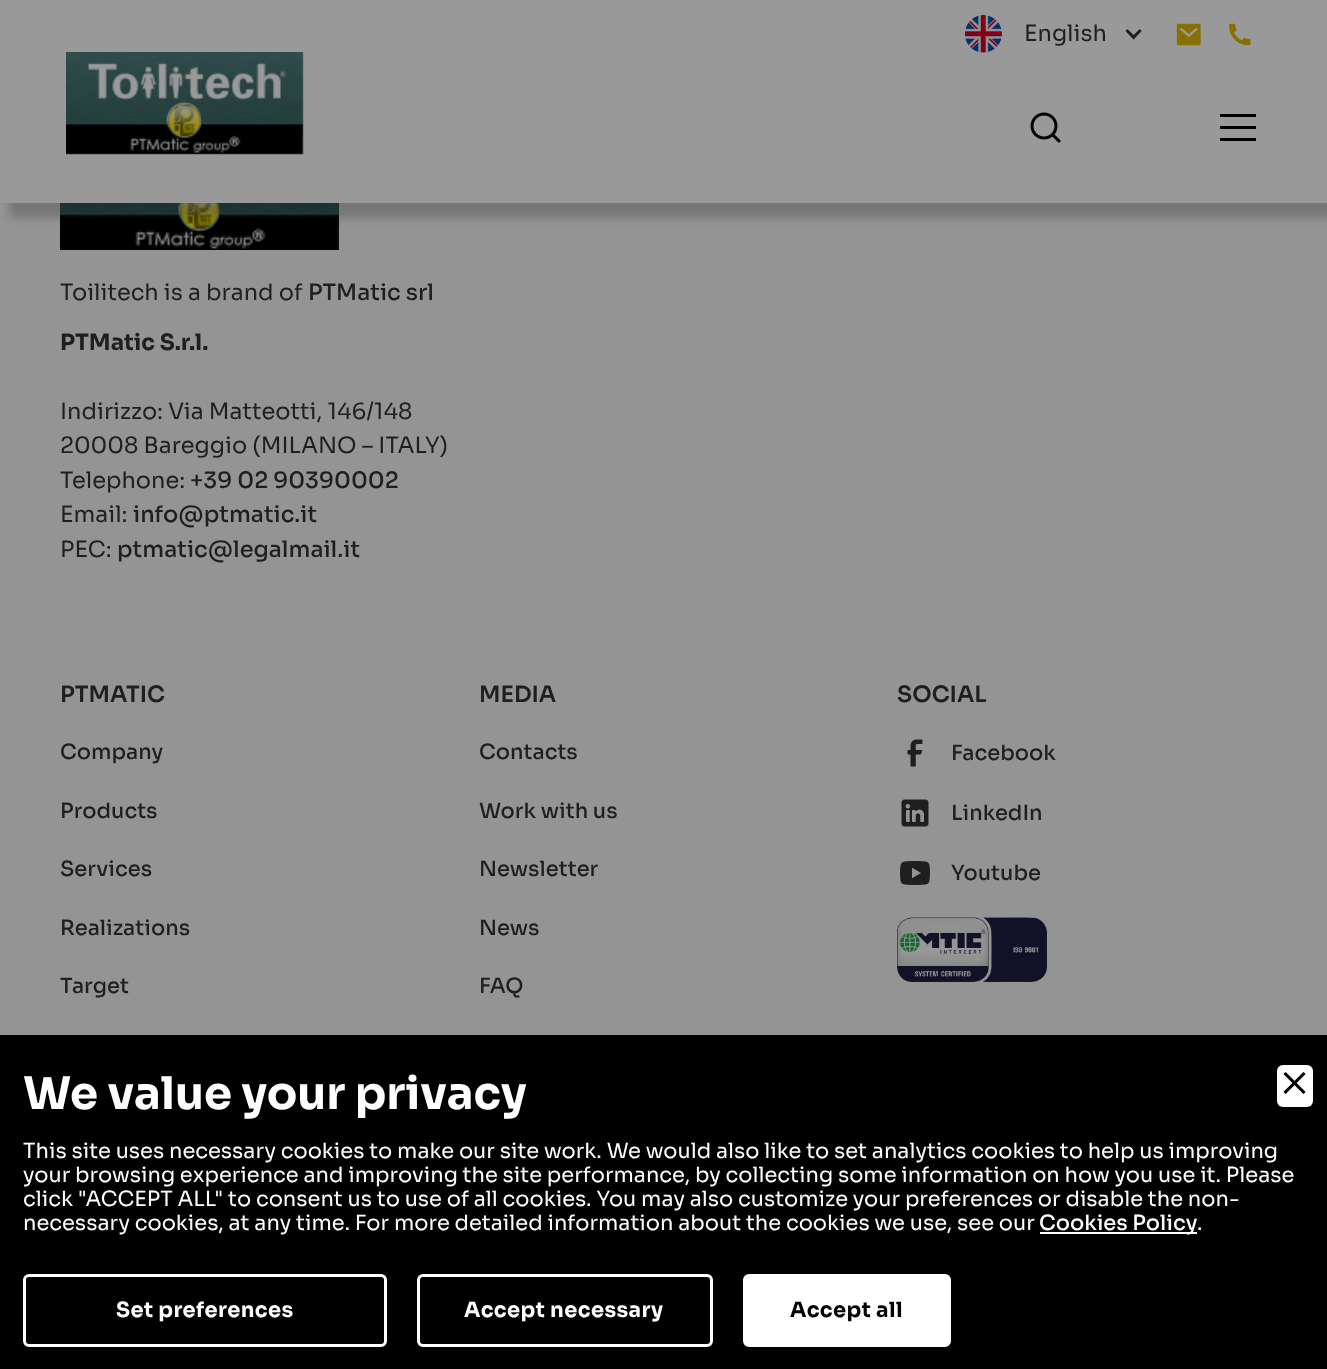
<?xml version="1.0" encoding="UTF-8"?>
<svg xmlns="http://www.w3.org/2000/svg" width="1327" height="1369">
    <defs>
        <filter id="blur1" x="-50%" y="-200%" width="200%" height="500%"><feGaussianBlur stdDeviation="5"/></filter>
    </defs>
    <rect width="100%" height="100%" fill="#949494"/>
    <image x="60" y="203" width="279" height="47" href="img_07.png"/>
    <rect x="9" y="9" width="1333" height="209" fill="#000000" fill-opacity="0.2" filter="url(#blur1)"/>
    <rect x="0" y="0" width="1327" height="203" fill="#999999"/>
    <image x="965" y="15" width="37" height="38" href="img_01.png"/>
    <text x="1024" y="41" font-family="Sora" font-size="22.5" fill="#1F1F1F">English</text>
    <image x="1125" y="29" width="17" height="11" href="img_02.png"/>
    <image x="1176" y="23" width="25" height="23" href="img_03.png"/>
    <image x="1229" y="23" width="22" height="23" href="img_04.png"/>
    <image x="66" y="52" width="238" height="103" href="img_05.png"/>
    <image x="1030" y="112" width="31" height="31" href="img_06.png"/>
    <rect x="1220" y="114" width="36" height="3" fill="#000000"/>
    <rect x="1220" y="126" width="36" height="3" fill="#000000"/>
    <rect x="1220" y="138" width="36" height="3" fill="#000000"/>
    <text x="60" y="300" font-family="Sora" font-size="22.5" fill="#1F1F1F">Toilitech is a brand of</text>
    <text x="308" y="300" font-family="Sora" font-size="22.5" font-weight="500" fill="#1F1F1F">PTMatic srl</text>
    <text x="60" y="350" font-family="Sora" font-size="22.5" font-weight="700" fill="#1F1F1F">PTMatic S.r.l.</text>
    <text font-family="Sora" font-size="22.5" fill="#1F1F1F">
        <tspan x="60" y="419">Indirizzo: Via Matteotti, 146/148</tspan>
        <tspan x="60" y="453">20008 Bareggio (MILANO – ITALY)</tspan>
        <tspan x="60" y="488">Telephone:</tspan>
    </text>
    <text x="190" y="488" font-family="Sora" font-size="22.5" font-weight="500" fill="#1F1F1F">+39 02 90390002</text>
    <text x="60" y="522" font-family="Sora" font-size="22.5" fill="#1F1F1F">Email:</text>
    <text x="133" y="522" font-family="Sora" font-size="22.5" font-weight="500" fill="#1F1F1F">info@ptmatic.it</text>
    <text x="60" y="557" font-family="Sora" font-size="22.5" fill="#1F1F1F">PEC:</text>
    <text x="117" y="557" font-family="Sora" font-size="22.5" font-weight="500" fill="#1F1F1F">ptmatic@legalmail.it</text>
    <text x="60" y="702" font-family="Sora" font-size="22.5" font-weight="600" fill="#1F1F1F">PTMATIC</text>
    <text x="60" y="759" font-family="Sora" font-size="21" font-weight="500" fill="#1F1F1F">Company</text>
    <text x="60" y="818" font-family="Sora" font-size="21" font-weight="500" fill="#1F1F1F">Products</text>
    <text x="60" y="876" font-family="Sora" font-size="21" font-weight="500" fill="#1F1F1F">Services</text>
    <text x="60" y="935" font-family="Sora" font-size="21" font-weight="500" fill="#1F1F1F">Realizations</text>
    <text x="60" y="993" font-family="Sora" font-size="21" font-weight="500" fill="#1F1F1F">Target</text>
    <text x="479" y="702" font-family="Sora" font-size="22.5" font-weight="600" fill="#1F1F1F">MEDIA</text>
    <text x="479" y="759" font-family="Sora" font-size="21" font-weight="500" fill="#1F1F1F">Contacts</text>
    <text x="479" y="818" font-family="Sora" font-size="21" font-weight="500" fill="#1F1F1F">Work with us</text>
    <text x="479" y="876" font-family="Sora" font-size="21" font-weight="500" fill="#1F1F1F">Newsletter</text>
    <text x="479" y="935" font-family="Sora" font-size="21" font-weight="500" fill="#1F1F1F">News</text>
    <text x="479" y="993" font-family="Sora" font-size="21" font-weight="500" fill="#1F1F1F">FAQ</text>
    <text x="897" y="702" font-family="Sora" font-size="22.5" font-weight="600" fill="#1F1F1F">SOCIAL</text>
    <image x="907" y="739" width="16" height="28" href="img_08.png"/>
    <text x="951" y="760" font-family="Sora" font-size="21" font-weight="500" fill="#1F1F1F">Facebook</text>
    <image x="901" y="799" width="28" height="28" href="img_09.png"/>
    <text x="951" y="820" font-family="Sora" font-size="21" font-weight="500" fill="#1F1F1F">LinkedIn</text>
    <image x="900" y="861" width="30" height="24" href="img_10.png"/>
    <text x="951" y="880" font-family="Sora" font-size="21" font-weight="500" fill="#1F1F1F">Youtube</text>
    <image x="897" y="917" width="150" height="65" href="img_11.png"/>
    <rect x="0" y="1035" width="1327" height="334" fill="#000000"/>
    <text x="23" y="1109" font-family="Sora" font-size="45" font-weight="700" fill="#FFFFFF">We value your privacy</text>
    <rect x="1277" y="1065" width="36" height="42" rx="6" fill="#FFFFFF"/>
    <image x="1283" y="1072" width="23" height="22" href="img_12.png"/>
    <text font-family="Sora" font-size="21" fill="#FFFFFF">
        <tspan x="23" y="1158">This site uses necessary cookies to make our site work. We would also like to set analytics cookies to help us improving</tspan>
        <tspan x="23" y="1182">your browsing experience and improving the site performance, by collecting some information on how you use it. Please</tspan>
        <tspan x="23" y="1206">click "ACCEPT ALL" to consent us to use of all cookies. You may also customize your preferences or disable the non-</tspan>
        <tspan x="23" y="1230">necessary cookies, at any time. For more detailed information about the cookies we use, see our</tspan>
    </text>
    <rect x="1040" y="1232" width="157" height="2" fill="#FFFFFF"/>
    <text x="1039" y="1230" font-family="Sora" font-size="21" font-weight="500" fill="#FFFFFF">Cookies Policy</text>
    <text x="1197" y="1230" font-family="Sora" font-size="21" fill="#FFFFFF">.</text>
    <rect x="24.5" y="1275.5" width="361" height="70" rx="4.5" fill="none" stroke="#FFFFFF" stroke-width="3"/>
    <text x="116" y="1317" font-family="Sora" font-size="21" font-weight="700" letter-spacing="0.4" fill="#FFFFFF">Set preferences</text>
    <rect x="418.5" y="1275.5" width="293" height="70" rx="4.5" fill="none" stroke="#FFFFFF" stroke-width="3"/>
    <text x="464" y="1317" font-family="Sora" font-size="21" font-weight="700" letter-spacing="0.4" fill="#FFFFFF">Accept necessary</text>
    <rect x="744.5" y="1275.5" width="205" height="70" rx="4.5" fill="#FFFFFF" stroke="#FFFFFF" stroke-width="3"/>
    <text x="790" y="1317" font-family="Sora" font-size="21" font-weight="700" letter-spacing="0.4" fill="#000000">Accept all</text>
</svg>
